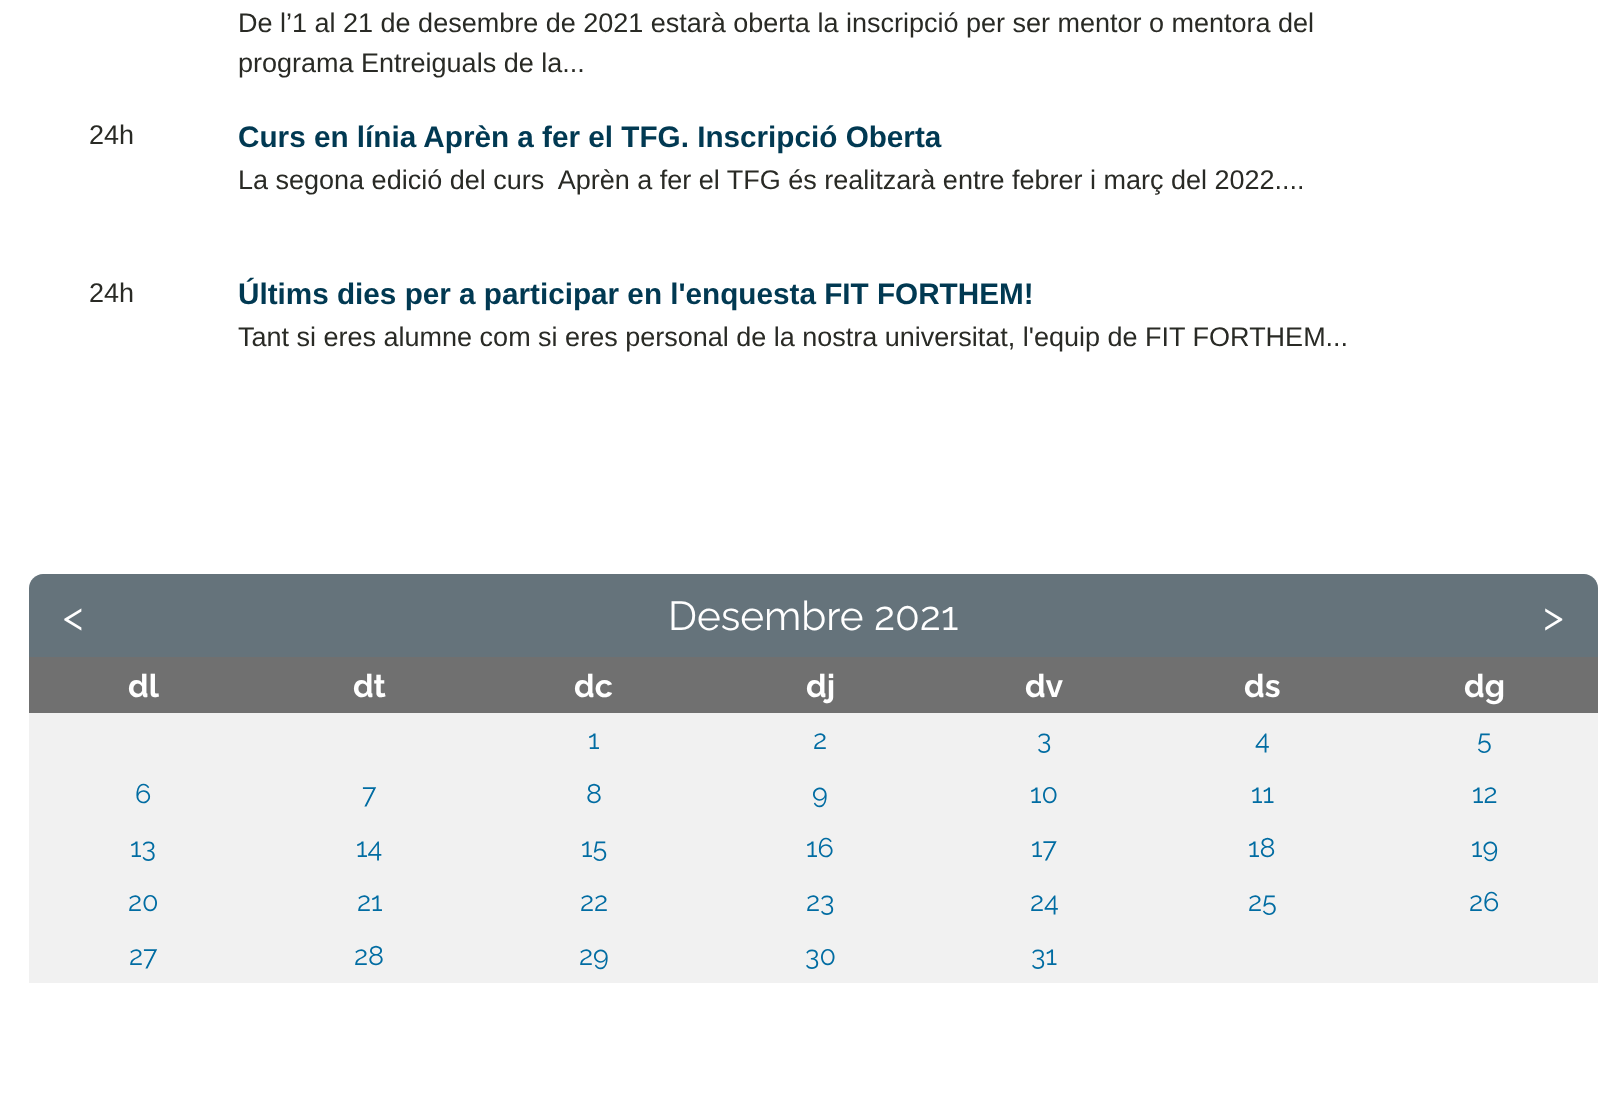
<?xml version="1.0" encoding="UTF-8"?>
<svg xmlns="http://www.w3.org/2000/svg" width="1624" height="1104">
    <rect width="100%" height="100%" fill="#FFFFFF"/>
    <text font-family="Liberation Sans" font-size="27" fill="#292A25">
        <tspan x="238" y="32">De l’1 al 21 de desembre de 2021 estarà oberta la inscripció per ser mentor o mentora del</tspan>
        <tspan x="238" y="72">programa Entreiguals de la...</tspan>
    </text>
    <text x="89" y="144" font-family="Liberation Sans" font-size="27" fill="#292A25">24h</text>
    <text x="238" y="147" font-family="Liberation Sans" font-size="29.7" font-weight="700" fill="#013952">Curs en línia Aprèn a fer el TFG. Inscripció Oberta</text>
    <text x="238" y="189" font-family="Liberation Sans" font-size="27" fill="#292A25" xml:space="preserve">La segona edició del curs  Aprèn a fer el TFG és realitzarà entre febrer i març del 2022....</text>
    <text x="89" y="302" font-family="Liberation Sans" font-size="27" fill="#292A25">24h</text>
    <text x="238" y="304" font-family="Liberation Sans" font-size="29.7" font-weight="700" fill="#013952">Últims dies per a participar en l'enquesta FIT FORTHEM!</text>
    <text x="238" y="346" font-family="Liberation Sans" font-size="27" fill="#292A25">Tant si eres alumne com si eres personal de la nostra universitat, l'equip de FIT FORTHEM...</text>
    <path d="M 43 574 H 1584 C 1591.5 574 1598 580.5 1598 588 V 657 H 29 V 588 C 29 580.5 35.5 574 43 574 Z" fill="#65737B"/>
    <text x="63" y="630" font-family="Raleway" font-size="40.5" fill="#FFFFFF">&lt;</text>
    <text x="668" y="630" font-family="Raleway" font-size="40.5" fill="#FFFFFF">Desembre 2021</text>
    <text x="1543" y="630" font-family="Raleway" font-size="40.5" fill="#FFFFFF">&gt;</text>
    <rect x="29" y="713" width="1569" height="270" fill="#F1F1F1"/>
    <rect x="29" y="657" width="1569" height="56" fill="#707070"/>
    <text x="128" y="697" font-family="Raleway" font-size="32" font-weight="700" fill="#FFFFFF">dl</text>
    <text x="353" y="697" font-family="Raleway" font-size="32" font-weight="700" fill="#FFFFFF">dt</text>
    <text x="574" y="697" font-family="Raleway" font-size="32" font-weight="700" fill="#FFFFFF">dc</text>
    <text x="806" y="697" font-family="Raleway" font-size="32" font-weight="700" fill="#FFFFFF">dj</text>
    <text x="1025" y="697" font-family="Raleway" font-size="32" font-weight="700" fill="#FFFFFF">dv</text>
    <text x="1244" y="697" font-family="Raleway" font-size="32" font-weight="700" fill="#FFFFFF">ds</text>
    <text x="1464" y="697" font-family="Raleway" font-size="32" font-weight="700" fill="#FFFFFF">dg</text>
    <text x="588" y="749" font-family="Raleway" font-size="27" fill="#016CA2">1</text>
    <text x="813" y="749" font-family="Raleway" font-size="27" fill="#016CA2">2</text>
    <text x="1037" y="749" font-family="Raleway" font-size="27" fill="#016CA2">3</text>
    <text x="1255" y="749" font-family="Raleway" font-size="27" fill="#016CA2">4</text>
    <text x="1477" y="749" font-family="Raleway" font-size="27" fill="#016CA2">5</text>
    <text x="135" y="803" font-family="Raleway" font-size="27" fill="#016CA2">6</text>
    <text x="362" y="803" font-family="Raleway" font-size="27" fill="#016CA2">7</text>
    <text x="586" y="803" font-family="Raleway" font-size="27" fill="#016CA2">8</text>
    <text x="812" y="803" font-family="Raleway" font-size="27" fill="#016CA2">9</text>
    <text x="1030" y="803" font-family="Raleway" font-size="27" fill="#016CA2">10</text>
    <text x="1251" y="803" font-family="Raleway" font-size="27" fill="#016CA2">11</text>
    <text x="1472" y="803" font-family="Raleway" font-size="27" fill="#016CA2">12</text>
    <text x="130" y="857" font-family="Raleway" font-size="27" fill="#016CA2">13</text>
    <text x="356" y="857" font-family="Raleway" font-size="27" fill="#016CA2">14</text>
    <text x="581" y="857" font-family="Raleway" font-size="27" fill="#016CA2">15</text>
    <text x="806" y="857" font-family="Raleway" font-size="27" fill="#016CA2">16</text>
    <text x="1031" y="857" font-family="Raleway" font-size="27" fill="#016CA2">17</text>
    <text x="1248" y="857" font-family="Raleway" font-size="27" fill="#016CA2">18</text>
    <text x="1471" y="857" font-family="Raleway" font-size="27" fill="#016CA2">19</text>
    <text x="128" y="911" font-family="Raleway" font-size="27" fill="#016CA2">20</text>
    <text x="357" y="911" font-family="Raleway" font-size="27" fill="#016CA2">21</text>
    <text x="580" y="911" font-family="Raleway" font-size="27" fill="#016CA2">22</text>
    <text x="806" y="911" font-family="Raleway" font-size="27" fill="#016CA2">23</text>
    <text x="1030" y="911" font-family="Raleway" font-size="27" fill="#016CA2">24</text>
    <text x="1248" y="911" font-family="Raleway" font-size="27" fill="#016CA2">25</text>
    <text x="1469" y="911" font-family="Raleway" font-size="27" fill="#016CA2">26</text>
    <text x="129" y="965" font-family="Raleway" font-size="27" fill="#016CA2">27</text>
    <text x="354" y="965" font-family="Raleway" font-size="27" fill="#016CA2">28</text>
    <text x="579" y="965" font-family="Raleway" font-size="27" fill="#016CA2">29</text>
    <text x="805" y="965" font-family="Raleway" font-size="27" fill="#016CA2">30</text>
    <text x="1031" y="965" font-family="Raleway" font-size="27" fill="#016CA2">31</text>
</svg>
